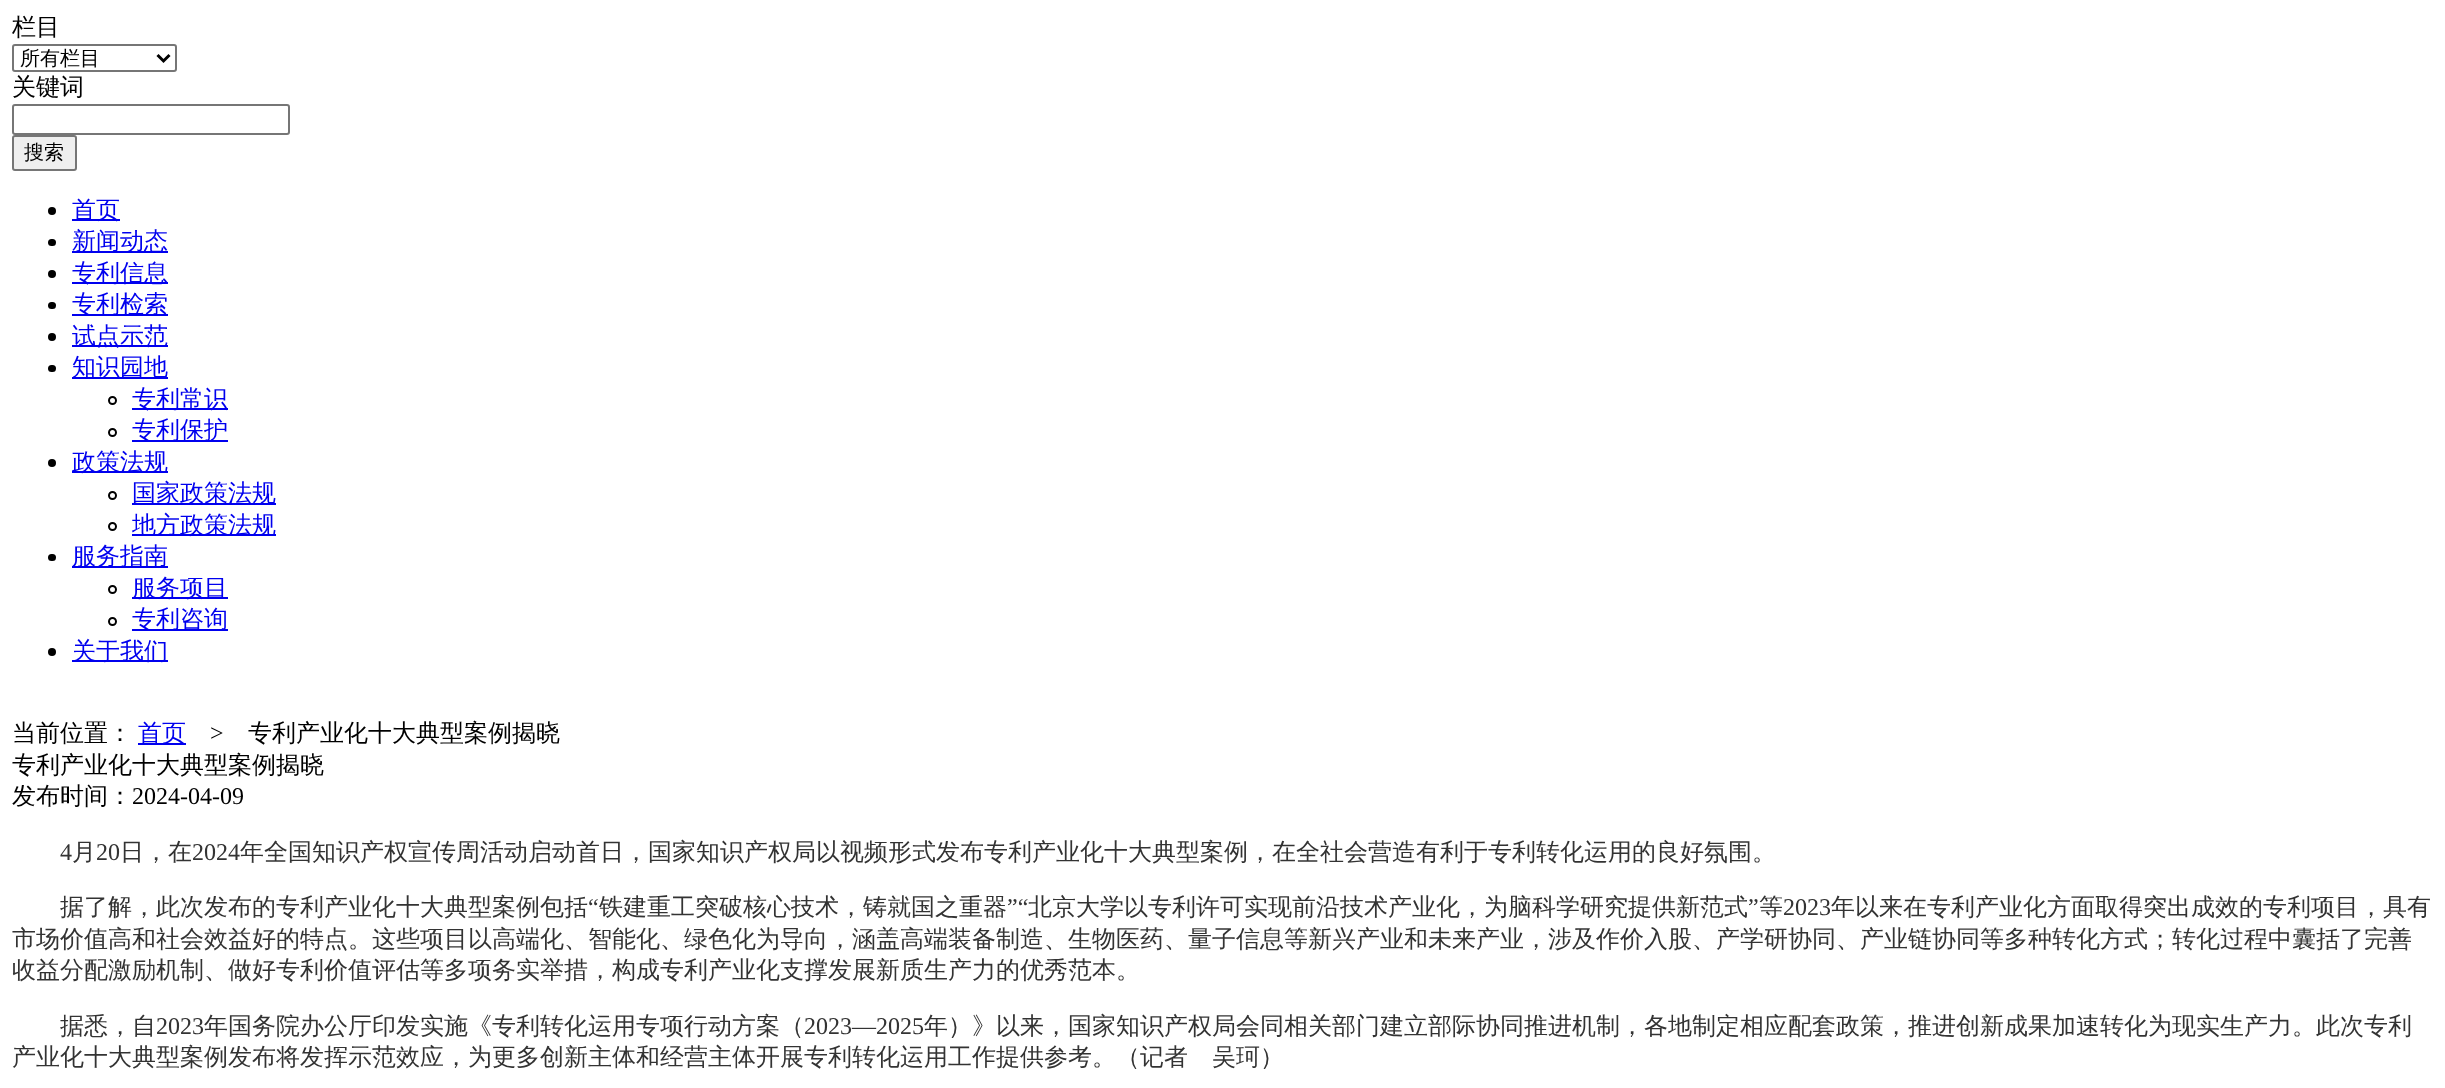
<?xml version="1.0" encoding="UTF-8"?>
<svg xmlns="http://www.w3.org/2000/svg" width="2445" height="1088">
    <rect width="100%" height="100%" fill="#FFFFFF"/>
    <text x="12" y="35" font-family="WenQuanYi Zen Hei" font-size="24" font-weight="500" fill="#000000">栏目</text>
    <rect x="13" y="45" width="163" height="26" rx="2" fill="none" stroke="#767676" stroke-width="2"/>
    <path d="M 157.5 55 L 163.5 61 L 169.5 55" fill="none" stroke="#000000" stroke-width="3"/>
    <text x="20" y="65" font-family="WenQuanYi Zen Hei" font-size="20" font-weight="500" fill="#000000">所有栏目</text>
    <text x="12" y="95" font-family="WenQuanYi Zen Hei" font-size="24" font-weight="500" fill="#000000">关键词</text>
    <rect x="13" y="105" width="276" height="29" rx="2" fill="none" stroke="#767676" stroke-width="2"/>
    <rect x="13" y="136" width="63" height="34" rx="2" fill="#EFEFEF" stroke="#767676" stroke-width="2"/>
    <text x="24" y="159" font-family="WenQuanYi Zen Hei" font-size="20" font-weight="500" fill="#000000">搜索</text>
    <circle cx="52" cy="211" r="4" fill="#000000"/>
    <rect x="72" y="219" width="48" height="2" fill="#0000EE"/>
    <text x="72" y="218" font-family="WenQuanYi Zen Hei" font-size="24" font-weight="500" fill="#0000EE">首页</text>
    <rect x="48" y="239" width="8" height="7" rx="3.5" fill="#000000"/>
    <rect x="72" y="251" width="96" height="2" fill="#0000EE"/>
    <text x="72" y="249" font-family="WenQuanYi Zen Hei" font-size="24" font-weight="500" fill="#0000EE">新闻动态</text>
    <circle cx="52" cy="274" r="4" fill="#000000"/>
    <rect x="72" y="282" width="96" height="2" fill="#0000EE"/>
    <text x="72" y="281" font-family="WenQuanYi Zen Hei" font-size="24" font-weight="500" fill="#0000EE">专利信息</text>
    <rect x="48" y="302" width="8" height="7" rx="3.5" fill="#000000"/>
    <rect x="72" y="314" width="96" height="2" fill="#0000EE"/>
    <text x="72" y="312" font-family="WenQuanYi Zen Hei" font-size="24" font-weight="500" fill="#0000EE">专利检索</text>
    <circle cx="52" cy="337" r="4" fill="#000000"/>
    <rect x="72" y="345" width="96" height="2" fill="#0000EE"/>
    <text x="72" y="344" font-family="WenQuanYi Zen Hei" font-size="24" font-weight="500" fill="#0000EE">试点示范</text>
    <rect x="48" y="365" width="8" height="7" rx="3.5" fill="#000000"/>
    <rect x="72" y="377" width="96" height="2" fill="#0000EE"/>
    <text x="72" y="375" font-family="WenQuanYi Zen Hei" font-size="24" font-weight="500" fill="#0000EE">知识园地</text>
    <circle cx="112.5" cy="400.5" r="3.5" fill="none" stroke="#000000" stroke-width="2"/>
    <rect x="132" y="408" width="96" height="2" fill="#0000EE"/>
    <text x="132" y="407" font-family="WenQuanYi Zen Hei" font-size="24" font-weight="500" fill="#0000EE">专利常识</text>
    <circle cx="112.5" cy="432.5" r="3.5" fill="none" stroke="#000000" stroke-width="2"/>
    <rect x="132" y="440" width="96" height="2" fill="#0000EE"/>
    <text x="132" y="438" font-family="WenQuanYi Zen Hei" font-size="24" font-weight="500" fill="#0000EE">专利保护</text>
    <circle cx="52" cy="463" r="4" fill="#000000"/>
    <rect x="72" y="471" width="96" height="2" fill="#0000EE"/>
    <text x="72" y="470" font-family="WenQuanYi Zen Hei" font-size="24" font-weight="500" fill="#0000EE">政策法规</text>
    <circle cx="112.5" cy="495.5" r="3.5" fill="none" stroke="#000000" stroke-width="2"/>
    <rect x="132" y="503" width="144" height="2" fill="#0000EE"/>
    <text x="132" y="501" font-family="WenQuanYi Zen Hei" font-size="24" font-weight="500" fill="#0000EE">国家政策法规</text>
    <circle cx="112.5" cy="526.5" r="3.5" fill="none" stroke="#000000" stroke-width="2"/>
    <rect x="132" y="534" width="144" height="2" fill="#0000EE"/>
    <text x="132" y="533" font-family="WenQuanYi Zen Hei" font-size="24" font-weight="500" fill="#0000EE">地方政策法规</text>
    <rect x="48" y="554" width="8" height="7" rx="3.5" fill="#000000"/>
    <rect x="72" y="566" width="96" height="2" fill="#0000EE"/>
    <text x="72" y="564" font-family="WenQuanYi Zen Hei" font-size="24" font-weight="500" fill="#0000EE">服务指南</text>
    <circle cx="112.5" cy="589.5" r="3.5" fill="none" stroke="#000000" stroke-width="2"/>
    <rect x="132" y="597" width="96" height="2" fill="#0000EE"/>
    <text x="132" y="596" font-family="WenQuanYi Zen Hei" font-size="24" font-weight="500" fill="#0000EE">服务项目</text>
    <circle cx="112.5" cy="621.5" r="3.5" fill="none" stroke="#000000" stroke-width="2"/>
    <rect x="132" y="629" width="96" height="2" fill="#0000EE"/>
    <text x="132" y="627" font-family="WenQuanYi Zen Hei" font-size="24" font-weight="500" fill="#0000EE">专利咨询</text>
    <circle cx="52" cy="652" r="4" fill="#000000"/>
    <rect x="72" y="660" width="96" height="2" fill="#0000EE"/>
    <text x="72" y="659" font-family="WenQuanYi Zen Hei" font-size="24" font-weight="500" fill="#0000EE">关于我们</text>
    <text x="12" y="741" font-family="WenQuanYi Zen Hei" font-size="24" font-weight="500" fill="#000000">当前位置：</text>
    <rect x="138" y="743" width="48" height="2" fill="#0000EE"/>
    <text x="138" y="741" font-family="WenQuanYi Zen Hei" font-size="24" font-weight="500" fill="#0000EE">首页</text>
    <text x="210" y="741" font-family="Liberation Serif" font-size="24" fill="#000000">&gt;</text>
    <text x="248" y="741" font-family="WenQuanYi Zen Hei" font-size="24" font-weight="500" fill="#000000">专利产业化十大典型案例揭晓</text>
    <text font-family="WenQuanYi Zen Hei" font-size="24" font-weight="500" fill="#000000">
        <tspan x="12" y="773">专利产业化十大典型案例揭晓</tspan>
        <tspan x="12" y="804">发布时间：</tspan>
    </text>
    <text x="132" y="804" font-family="Liberation Serif" font-size="24" fill="#000000">2024-04-09</text>
    <text x="60" y="860" font-family="Liberation Serif" font-size="24" fill="#333333">4</text>
    <text x="72" y="860" font-family="WenQuanYi Zen Hei" font-size="24" font-weight="500" fill="#333333">月</text>
    <text x="96" y="860" font-family="Liberation Serif" font-size="24" fill="#333333">20</text>
    <text x="120" y="860" font-family="WenQuanYi Zen Hei" font-size="24" font-weight="500" fill="#333333">日，在</text>
    <text x="192" y="860" font-family="Liberation Serif" font-size="24" fill="#333333">2024</text>
    <text x="240" y="860" font-family="WenQuanYi Zen Hei" font-size="24" font-weight="500" fill="#333333">年全国知识产权宣传周活动启动首日，国家知识产权局以视频形式发布专利产业化十大典型案例，在全社会营造有利于专利转化运用的良好氛围。</text>
    <text x="60" y="915" font-family="WenQuanYi Zen Hei" font-size="24" font-weight="500" fill="#333333">据了解，此次发布的专利产业化十大典型案例包括</text>
    <text x="588" y="915" font-family="Liberation Serif" font-size="24" fill="#333333">“</text>
    <text x="599" y="915" font-family="WenQuanYi Zen Hei" font-size="24" font-weight="500" fill="#333333">铁建重工突破核心技术，铸就国之重器</text>
    <text x="1007" y="915" font-family="Liberation Serif" font-size="24" fill="#333333">”“</text>
    <text x="1028" y="915" font-family="WenQuanYi Zen Hei" font-size="24" font-weight="500" fill="#333333">北京大学以专利许可实现前沿技术产业化，为脑科学研究提供新范式</text>
    <text x="1748" y="915" font-family="Liberation Serif" font-size="24" fill="#333333">”</text>
    <text x="1759" y="915" font-family="WenQuanYi Zen Hei" font-size="24" font-weight="500" fill="#333333">等</text>
    <text x="1783" y="915" font-family="Liberation Serif" font-size="24" fill="#333333">2023</text>
    <text x="1831" y="915" font-family="WenQuanYi Zen Hei" font-size="24" font-weight="500" fill="#333333">年以来在专利产业化方面取得突出成效的专利项目，具有</text>
    <text font-family="WenQuanYi Zen Hei" font-size="24" font-weight="500" fill="#333333">
        <tspan x="12" y="947">市场价值高和社会效益好的特点。这些项目以高端化、智能化、绿色化为导向，涵盖高端装备制造、生物医药、量子信息等新兴产业和未来产业，涉及作价入股、产学研协同、产业链协同等多种转化方式；转化过程中囊括了完善</tspan>
        <tspan x="12" y="978">收益分配激励机制、做好专利价值评估等多项务实举措，构成专利产业化支撑发展新质生产力的优秀范本。</tspan>
    </text>
    <text x="60" y="1034" font-family="WenQuanYi Zen Hei" font-size="24" font-weight="500" fill="#333333">据悉，自</text>
    <text x="156" y="1034" font-family="Liberation Serif" font-size="24" fill="#333333">2023</text>
    <text x="204" y="1034" font-family="WenQuanYi Zen Hei" font-size="24" font-weight="500" fill="#333333">年国务院办公厅印发实施《专利转化运用专项行动方案（</text>
    <text x="804" y="1034" font-family="Liberation Serif" font-size="24" fill="#333333">2023—2025</text>
    <text x="924" y="1034" font-family="WenQuanYi Zen Hei" font-size="24" font-weight="500" fill="#333333">年）》以来，国家知识产权局会同相关部门建立部际协同推进机制，各地制定相应配套政策，推进创新成果加速转化为现实生产力。此次专利</text>
    <text x="12" y="1065" font-family="WenQuanYi Zen Hei" font-size="24" font-weight="500" fill="#333333">产业化十大典型案例发布将发挥示范效应，为更多创新主体和经营主体开展专利转化运用工作提供参考。（记者　吴珂）</text>
</svg>
